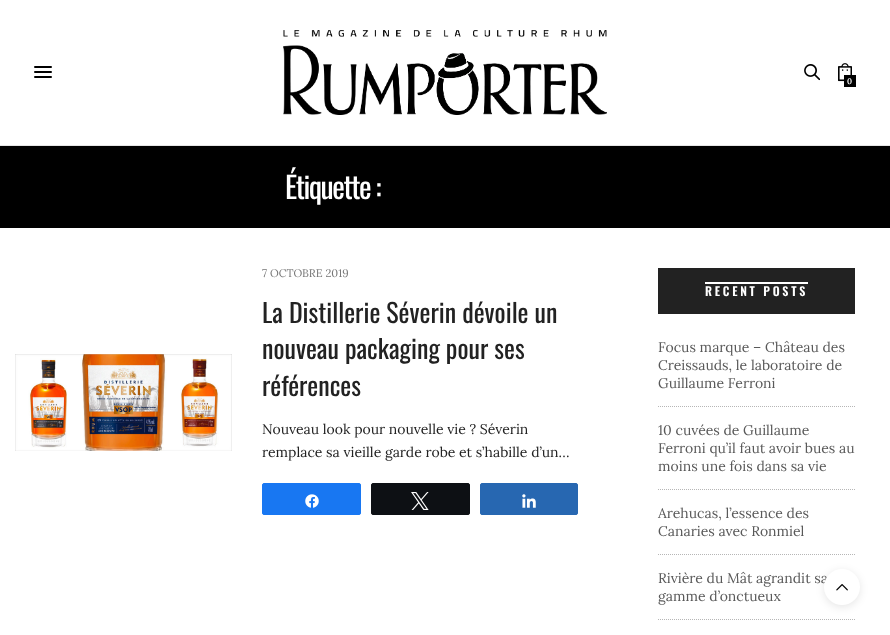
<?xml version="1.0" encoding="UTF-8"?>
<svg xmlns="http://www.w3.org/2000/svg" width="890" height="635">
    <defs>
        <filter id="blur1" x="-50%" y="-200%" width="200%" height="500%"><feGaussianBlur stdDeviation="4"/></filter>
    </defs>
    <rect width="100%" height="100%" fill="#FFFFFF"/>
    <rect x="0" y="145" width="890" height="1" fill="#E6E6E6"/>
    <rect x="34" y="66" width="18" height="2" rx="1" fill="#000000"/>
    <rect x="34" y="71" width="18" height="2" rx="1" fill="#000000"/>
    <rect x="34" y="76" width="18" height="2" rx="1" fill="#000000"/>
    <image x="283" y="30" width="324" height="85" href="img_01.png"/>
    <image x="804" y="64" width="16" height="17" href="img_02.png"/>
    <image x="838" y="63" width="14" height="19" href="img_03.png"/>
    <rect x="844" y="75" width="12" height="12" fill="#000000"/>
    <text x="847" y="84" font-family="Lora" font-size="8" font-weight="600" fill="#FFFFFF">0</text>
    <rect x="0" y="146" width="890" height="82" fill="#000000"/>
    <text x="285" y="199" font-family="Oswald" font-size="30" letter-spacing="-1.5" fill="#FFFFFF">Étiquette :</text>
    <image x="15" y="354" width="217" height="97" href="img_04.png"/>
    <text x="262" y="277" font-family="Lora" font-size="11" fill="#767676">7 OCTOBRE 2019</text>
    <text font-family="Oswald" font-size="26" fill="#222222">
        <tspan x="262" y="323">La Distillerie Séverin dévoile un</tspan>
        <tspan x="262" y="359">nouveau packaging pour ses</tspan>
        <tspan x="262" y="396">références</tspan>
    </text>
    <text font-family="Lora" font-size="14" fill="#222222">
        <tspan x="262" y="434">Nouveau look pour nouvelle vie ? Séverin</tspan>
        <tspan x="262" y="457">remplace sa vieille garde robe et s’habille d’un…</tspan>
    </text>
    <rect x="262.5" y="483.5" width="98" height="31" rx="1.5" fill="#1877F2" stroke="#1877F2"/>
    <image x="305" y="494" width="14" height="14" href="img_05.png"/>
    <rect x="371.5" y="483.5" width="98" height="31" rx="1.5" fill="#0D1014" stroke="#0D1014"/>
    <image x="411" y="492" width="18" height="18" href="img_06.png"/>
    <rect x="480.5" y="483.5" width="97" height="31" rx="1.5" fill="#2767B1" stroke="#2767B1"/>
    <image x="522" y="494" width="14" height="14" href="img_07.png"/>
    <rect x="658" y="268" width="197" height="46" fill="#222222"/>
    <text x="705" y="296" font-family="Oswald" font-size="12" font-weight="600" letter-spacing="2.75" fill="#FFFFFF">RECENT POSTS</text>
    <rect x="705" y="282" width="103" height="2" fill="#FFFFFF"/>
    <path d="M 658 406.5 H 855" fill="none" stroke="#B6B6B6" stroke-dasharray="1 1"/>
    <text font-family="Lora" font-size="14" fill="#595959">
        <tspan x="658" y="352">Focus marque – Château des</tspan>
        <tspan x="658" y="370">Creissauds, le laboratoire de</tspan>
        <tspan x="658" y="388">Guillaume Ferroni</tspan>
    </text>
    <path d="M 658 489.5 H 855" fill="none" stroke="#B6B6B6" stroke-dasharray="1 1"/>
    <text font-family="Lora" font-size="14" fill="#595959">
        <tspan x="658" y="435">10 cuvées de Guillaume</tspan>
        <tspan x="658" y="453">Ferroni qu’il faut avoir bues au</tspan>
        <tspan x="658" y="471">moins une fois dans sa vie</tspan>
    </text>
    <path d="M 658 554.5 H 855" fill="none" stroke="#B6B6B6" stroke-dasharray="1 1"/>
    <text font-family="Lora" font-size="14" fill="#595959">
        <tspan x="658" y="518">Arehucas, l’essence des</tspan>
        <tspan x="658" y="536">Canaries avec Ronmiel</tspan>
    </text>
    <path d="M 658 619.5 H 855" fill="none" stroke="#B6B6B6" stroke-dasharray="1 1"/>
    <text font-family="Lora" font-size="14" fill="#595959">
        <tspan x="658" y="583">Rivière du Mât agrandit sa</tspan>
        <tspan x="658" y="601">gamme d’onctueux</tspan>
    </text>
    <rect x="824" y="571" width="36" height="36" rx="18" fill="#000000" fill-opacity="0.1" filter="url(#blur1)"/>
    <circle cx="842" cy="587" r="18" fill="#FFFFFF"/>
    <image x="836" y="584" width="12" height="7" href="img_08.png"/>
</svg>
